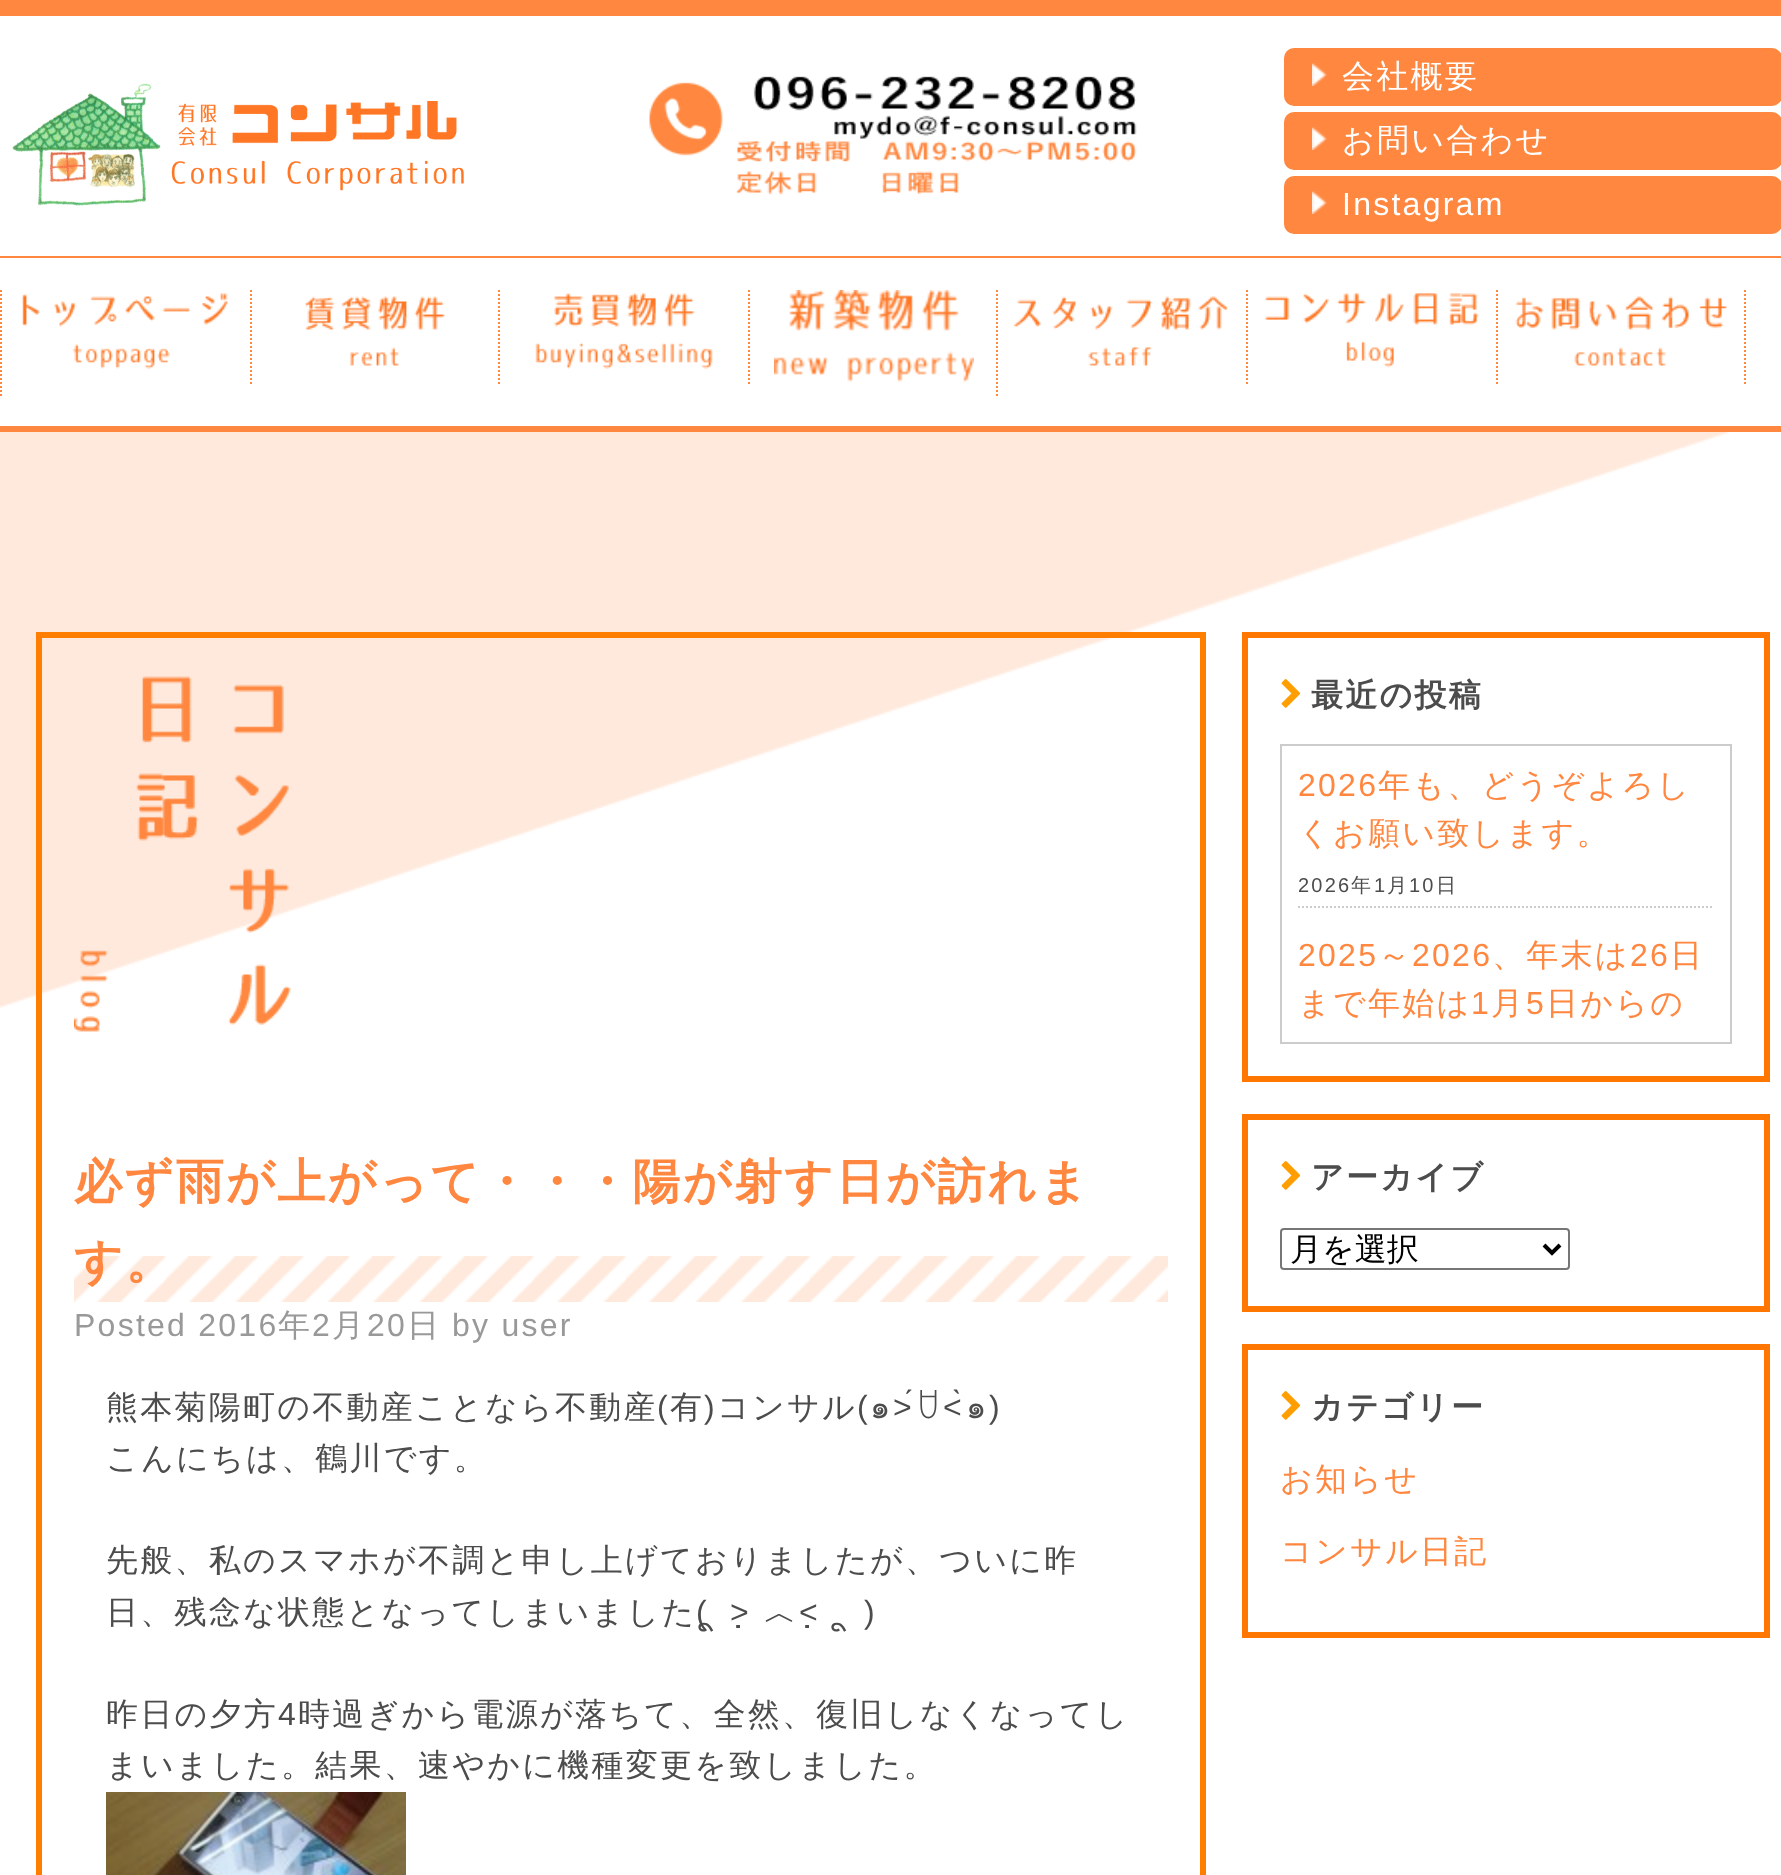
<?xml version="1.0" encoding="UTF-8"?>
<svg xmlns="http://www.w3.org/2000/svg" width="1781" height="1875">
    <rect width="100%" height="100%" fill="#FFFFFF"/>
    <rect x="0" y="0" width="1781" height="16" fill="#FF873F"/>
    <image x="12" y="83" width="452" height="123" href="img_01.png"/>
    <image x="649" y="76" width="488" height="119" href="img_02.png"/>
    <rect x="1284" y="48" width="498" height="58" rx="10" fill="#FF873F"/>
    <image x="1312" y="63" width="15" height="23" href="img_03.png"/>
    <text x="1342" y="87" font-family="WenQuanYi Zen Hei" font-size="32" font-weight="500" letter-spacing="2.25" fill="#FFFFFF">会社概要</text>
    <rect x="1284" y="112" width="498" height="58" rx="10" fill="#FF873F"/>
    <image x="1312" y="127" width="15" height="23" href="img_03.png"/>
    <text x="1342" y="151" font-family="WenQuanYi Zen Hei" font-size="32" font-weight="500" letter-spacing="2.25" fill="#FFFFFF">お問い合わせ</text>
    <rect x="1284" y="176" width="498" height="58" rx="10" fill="#FF873F"/>
    <image x="1312" y="191" width="15" height="23" href="img_03.png"/>
    <text x="1342" y="215" font-family="Liberation Sans" font-size="32" letter-spacing="2.25" fill="#FFFFFF">Instagram</text>
    <rect x="0" y="256" width="1781" height="2" fill="#FF873F"/>
    <rect x="0" y="426" width="1781" height="6" fill="#FF873F"/>
    <path d="M 1 290 V 396" fill="none" stroke="#FF873F" stroke-width="2" stroke-dasharray="2 2"/>
    <path d="M 251 290 V 386" fill="none" stroke="#FF873F" stroke-width="2" stroke-dasharray="2 2"/>
    <image x="22" y="293" width="206" height="76" href="img_04.png"/>
    <path d="M 499 290 V 386" fill="none" stroke="#FF873F" stroke-width="2" stroke-dasharray="2 2"/>
    <image x="305" y="296" width="140" height="70" href="img_05.png"/>
    <path d="M 749 290 V 386" fill="none" stroke="#FF873F" stroke-width="2" stroke-dasharray="2 2"/>
    <image x="535" y="293" width="178" height="76" href="img_06.png"/>
    <path d="M 997 290 V 396" fill="none" stroke="#FF873F" stroke-width="2" stroke-dasharray="2 2"/>
    <image x="774" y="290" width="200" height="92" href="img_07.png"/>
    <path d="M 1247 290 V 386" fill="none" stroke="#FF873F" stroke-width="2" stroke-dasharray="2 2"/>
    <image x="1014" y="296" width="215" height="70" href="img_08.png"/>
    <path d="M 1497 290 V 386" fill="none" stroke="#FF873F" stroke-width="2" stroke-dasharray="2 2"/>
    <image x="1265" y="293" width="214" height="75" href="img_09.png"/>
    <path d="M 1745 290 V 386" fill="none" stroke="#FF873F" stroke-width="2" stroke-dasharray="2 2"/>
    <image x="1515" y="296" width="212" height="70" href="img_10.png"/>
    <image x="0" y="432" width="1729" height="576" href="img_11.png"/>
    <rect x="39" y="635" width="1164" height="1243" fill="none" stroke="#FF7E00" stroke-width="6"/>
    <image x="74" y="676" width="217" height="356" href="img_12.png"/>
    <image x="74" y="1256" width="1094" height="46" href="img_13.png"/>
    <text font-family="WenQuanYi Zen Hei" font-size="48" font-weight="700" letter-spacing="2.25" fill="#FF873F">
        <tspan x="74" y="1198">必ず雨が上がって・・・陽が射す日が訪れま</tspan>
        <tspan x="74" y="1278">す。</tspan>
    </text>
    <text x="74" y="1336" font-family="Liberation Sans" font-size="32" letter-spacing="2.25" fill="#999999">Posted 2016</text>
    <text x="278" y="1336" font-family="WenQuanYi Zen Hei" font-size="32" font-weight="500" letter-spacing="2.25" fill="#999999">年</text>
    <text x="312" y="1336" font-family="Liberation Sans" font-size="32" letter-spacing="2.25" fill="#999999">2</text>
    <text x="332" y="1336" font-family="WenQuanYi Zen Hei" font-size="32" font-weight="500" letter-spacing="2.25" fill="#999999">月</text>
    <text x="367" y="1336" font-family="Liberation Sans" font-size="32" letter-spacing="2.25" fill="#999999">20</text>
    <text x="407" y="1336" font-family="WenQuanYi Zen Hei" font-size="32" font-weight="500" letter-spacing="2.25" fill="#999999">日</text>
    <text x="452" y="1336" font-family="Liberation Sans" font-size="32" letter-spacing="2.25" fill="#999999">by user</text>
    <text x="106" y="1418" font-family="WenQuanYi Zen Hei" font-size="32" font-weight="500" letter-spacing="2.25" fill="#4D4C4C">熊本菊陽町の不動産ことなら不動産</text>
    <text x="657" y="1418" font-family="Liberation Sans" font-size="32" letter-spacing="2.25" fill="#4D4C4C">(</text>
    <text x="670" y="1418" font-family="WenQuanYi Zen Hei" font-size="32" font-weight="500" letter-spacing="2.25" fill="#4D4C4C">有</text>
    <text x="704" y="1418" font-family="Liberation Sans" font-size="32" letter-spacing="2.25" fill="#4D4C4C">)</text>
    <text x="717" y="1418" font-family="WenQuanYi Zen Hei" font-size="32" font-weight="500" letter-spacing="2.25" fill="#4D4C4C">コンサル</text>
    <text x="857" y="1418" font-family="Liberation Sans" font-size="32" letter-spacing="2.25" fill="#4D4C4C">(</text>
    <text x="870" y="1418" font-family="Loma" font-size="32" letter-spacing="2.25" fill="#4D4C4C">๑</text>
    <text x="893" y="1418" font-family="Liberation Sans" font-size="32" letter-spacing="2.25" fill="#4D4C4C">˃́</text>
    <text x="916" y="1418" font-family="Nuosu SIL" font-size="32" letter-spacing="2.25" fill="#4D4C4C">ꇴ</text>
    <text x="943" y="1418" font-family="Liberation Sans" font-size="32" letter-spacing="2.25" fill="#4D4C4C">˂̀</text>
    <text x="966" y="1418" font-family="Loma" font-size="32" letter-spacing="2.25" fill="#4D4C4C">๑</text>
    <text x="989" y="1418" font-family="Liberation Sans" font-size="32" letter-spacing="2.25" fill="#4D4C4C">)</text>
    <text x="106" y="1469" font-family="WenQuanYi Zen Hei" font-size="32" font-weight="500" letter-spacing="2.25" fill="#4D4C4C">こんにちは、鶴川です。</text>
    <text font-family="WenQuanYi Zen Hei" font-size="32" font-weight="500" letter-spacing="2.25" fill="#4D4C4C">
        <tspan x="106" y="1571">先般、私のスマホが不調と申し上げておりましたが、ついに昨</tspan>
        <tspan x="106" y="1623">日、残念な状態となってしまいました</tspan>
    </text>
    <text x="696" y="1623" font-family="Liberation Sans" font-size="32" letter-spacing="2.25" fill="#4D4C4C">(</text>
    <text x="709" y="1623" font-family="Noto Sans" font-size="32" letter-spacing="2.25" fill="#4D4C4C">ू</text>
    <text x="730" y="1623" font-family="Liberation Sans" font-size="32" letter-spacing="2.25" fill="#4D4C4C">˃̣̣̣̣̣̣</text>
    <text x="764" y="1623" font-family="WenQuanYi Zen Hei" font-size="32" font-weight="500" letter-spacing="2.25" fill="#4D4C4C">︿</text>
    <text x="799" y="1623" font-family="Liberation Sans" font-size="32" letter-spacing="2.25" fill="#4D4C4C">˂̣̣̣̣̣̣</text>
    <text x="864" y="1623" font-family="Liberation Sans" font-size="32" letter-spacing="2.25" fill="#4D4C4C">)</text>
    <text x="842" y="1623" font-family="Noto Sans" font-size="32" letter-spacing="2.25" fill="#4D4C4C">ू</text>
    <text x="106" y="1725" font-family="WenQuanYi Zen Hei" font-size="32" font-weight="500" letter-spacing="2.25" fill="#4D4C4C">昨日の夕方</text>
    <text x="278" y="1725" font-family="Liberation Sans" font-size="32" letter-spacing="2.25" fill="#4D4C4C">4</text>
    <text x="298" y="1725" font-family="WenQuanYi Zen Hei" font-size="32" font-weight="500" letter-spacing="2.25" fill="#4D4C4C">時過ぎから電源が落ちて、全然、復旧しなくなってし</text>
    <text x="106" y="1776" font-family="WenQuanYi Zen Hei" font-size="32" font-weight="500" letter-spacing="2.25" fill="#4D4C4C">まいました。結果、速やかに機種変更を致しました。</text>
    <image x="106" y="1792" width="300" height="83" href="img_14.png"/>
    <rect x="1245" y="635" width="522" height="444" fill="none" stroke="#FF7600" stroke-width="6"/>
    <image x="1281" y="679" width="20" height="29" href="img_15.png"/>
    <text x="1311" y="706" font-family="WenQuanYi Zen Hei" font-size="32" font-weight="700" letter-spacing="2.25" fill="#4D4C4C">最近の投稿</text>
    <rect x="1281" y="745" width="450" height="298" fill="none" stroke="#CCCCCC" stroke-width="2"/>
    <path d="M 1298 907 H 1714" fill="none" stroke="#CCCCCC" stroke-width="2" stroke-dasharray="2 2"/>
    <text x="1298" y="796" font-family="Liberation Sans" font-size="32" letter-spacing="2.25" fill="#FF873F">2026</text>
    <text x="1378" y="796" font-family="WenQuanYi Zen Hei" font-size="32" font-weight="500" letter-spacing="2.25" fill="#FF873F">年も、どうぞよろし</text>
    <text x="1298" y="844" font-family="WenQuanYi Zen Hei" font-size="32" font-weight="500" letter-spacing="2.25" fill="#FF873F">くお願い致します。</text>
    <text x="1298" y="892" font-family="Liberation Sans" font-size="20" letter-spacing="2.25" fill="#4D4C4C">2026</text>
    <text x="1351" y="892" font-family="WenQuanYi Zen Hei" font-size="20" font-weight="500" letter-spacing="2.25" fill="#4D4C4C">年</text>
    <text x="1374" y="892" font-family="Liberation Sans" font-size="20" letter-spacing="2.25" fill="#4D4C4C">1</text>
    <text x="1387" y="892" font-family="WenQuanYi Zen Hei" font-size="20" font-weight="500" letter-spacing="2.25" fill="#4D4C4C">月</text>
    <text x="1409" y="892" font-family="Liberation Sans" font-size="20" letter-spacing="2.25" fill="#4D4C4C">10</text>
    <text x="1436" y="892" font-family="WenQuanYi Zen Hei" font-size="20" font-weight="500" letter-spacing="2.25" fill="#4D4C4C">日</text>
    <text x="1298" y="966" font-family="Liberation Sans" font-size="32" letter-spacing="2.25" fill="#FF873F">2025</text>
    <text x="1378" y="966" font-family="WenQuanYi Zen Hei" font-size="32" font-weight="500" letter-spacing="2.25" fill="#FF873F">～</text>
    <text x="1412" y="966" font-family="Liberation Sans" font-size="32" letter-spacing="2.25" fill="#FF873F">2026</text>
    <text x="1492" y="966" font-family="WenQuanYi Zen Hei" font-size="32" font-weight="500" letter-spacing="2.25" fill="#FF873F">、年末は</text>
    <text x="1630" y="966" font-family="Liberation Sans" font-size="32" letter-spacing="2.25" fill="#FF873F">26</text>
    <text x="1670" y="966" font-family="WenQuanYi Zen Hei" font-size="32" font-weight="500" letter-spacing="2.25" fill="#FF873F">日</text>
    <text x="1298" y="1014" font-family="WenQuanYi Zen Hei" font-size="32" font-weight="500" letter-spacing="2.25" fill="#FF873F">まで年始は</text>
    <text x="1471" y="1014" font-family="Liberation Sans" font-size="32" letter-spacing="2.25" fill="#FF873F">1</text>
    <text x="1491" y="1014" font-family="WenQuanYi Zen Hei" font-size="32" font-weight="500" letter-spacing="2.25" fill="#FF873F">月</text>
    <text x="1526" y="1014" font-family="Liberation Sans" font-size="32" letter-spacing="2.25" fill="#FF873F">5</text>
    <text x="1546" y="1014" font-family="WenQuanYi Zen Hei" font-size="32" font-weight="500" letter-spacing="2.25" fill="#FF873F">日からの</text>
    <rect x="1245" y="1117" width="522" height="192" fill="none" stroke="#FF7600" stroke-width="6"/>
    <image x="1281" y="1161" width="20" height="29" href="img_15.png"/>
    <text x="1311" y="1188" font-family="WenQuanYi Zen Hei" font-size="32" font-weight="700" letter-spacing="2.25" fill="#4D4C4C">アーカイブ</text>
    <rect x="1281" y="1229" width="288" height="40" rx="3" fill="none" stroke="#767676" stroke-width="2"/>
    <path d="M 1544 1245 L 1552 1253 L 1560 1245" fill="none" stroke="#000000" stroke-width="4"/>
    <text x="1290" y="1260" font-family="WenQuanYi Zen Hei" font-size="32" font-weight="500" fill="#000000">月を選択</text>
    <rect x="1245" y="1347" width="522" height="288" fill="none" stroke="#FF7600" stroke-width="6"/>
    <image x="1281" y="1391" width="20" height="29" href="img_15.png"/>
    <text x="1311" y="1418" font-family="WenQuanYi Zen Hei" font-size="32" font-weight="700" letter-spacing="2.25" fill="#4D4C4C">カテゴリー</text>
    <text x="1280" y="1490" font-family="WenQuanYi Zen Hei" font-size="32" font-weight="500" letter-spacing="2.25" fill="#FF873F">お知らせ</text>
    <text x="1280" y="1562" font-family="WenQuanYi Zen Hei" font-size="32" font-weight="500" letter-spacing="2.25" fill="#FF873F">コンサル日記</text>
</svg>
